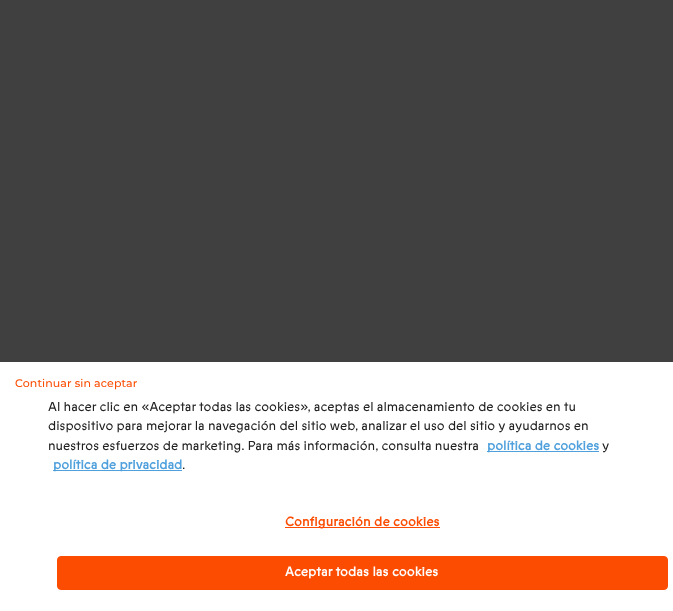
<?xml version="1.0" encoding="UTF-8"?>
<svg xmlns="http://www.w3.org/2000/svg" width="673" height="611">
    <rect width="100%" height="100%" fill="#404040"/>
    <rect x="0" y="362" width="673" height="249" fill="#FFFFFF"/>
    <text x="15" y="387" font-family="Montserrat" font-size="11" font-weight="500" letter-spacing="0.1" fill="#FC4C02">Continuar sin aceptar</text>
    <text font-family="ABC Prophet" font-size="13" fill="#212121">
        <tspan x="48" y="411">Al hacer clic en «Aceptar todas las cookies», aceptas el almacenamiento de cookies en tu</tspan>
        <tspan x="48" y="430">dispositivo para mejorar la navegación del sitio web, analizar el uso del sitio y ayudarnos en</tspan>
        <tspan x="48" y="450">nuestros esfuerzos de marketing. Para más información, consulta nuestra</tspan>
    </text>
    <rect x="487" y="451" width="112" height="1" fill="#4FA0DC"/>
    <text x="487" y="450" font-family="ABC Prophet" font-size="13" font-weight="700" fill="#4FA0DC">política de cookies</text>
    <text x="602" y="450" font-family="ABC Prophet" font-size="13" fill="#212121">y</text>
    <rect x="53" y="470" width="129" height="1" fill="#4FA0DC"/>
    <text x="53" y="469" font-family="ABC Prophet" font-size="13" font-weight="700" fill="#4FA0DC">política de privacidad</text>
    <text x="182" y="469" font-family="ABC Prophet" font-size="13" fill="#212121">.</text>
    <rect x="285" y="527" width="155" height="1" fill="#FC4C02"/>
    <text x="285" y="526" font-family="ABC Prophet" font-size="13" font-weight="700" letter-spacing="0.1" fill="#FC4C02">Configuración de cookies</text>
    <rect x="57.5" y="556.5" width="610" height="33" rx="3.5" fill="#FC4C02" stroke="#FC4C02"/>
    <text x="285" y="576" font-family="ABC Prophet" font-size="13" font-weight="700" letter-spacing="0.1" fill="#FFFFFF">Aceptar todas las cookies</text>
</svg>
